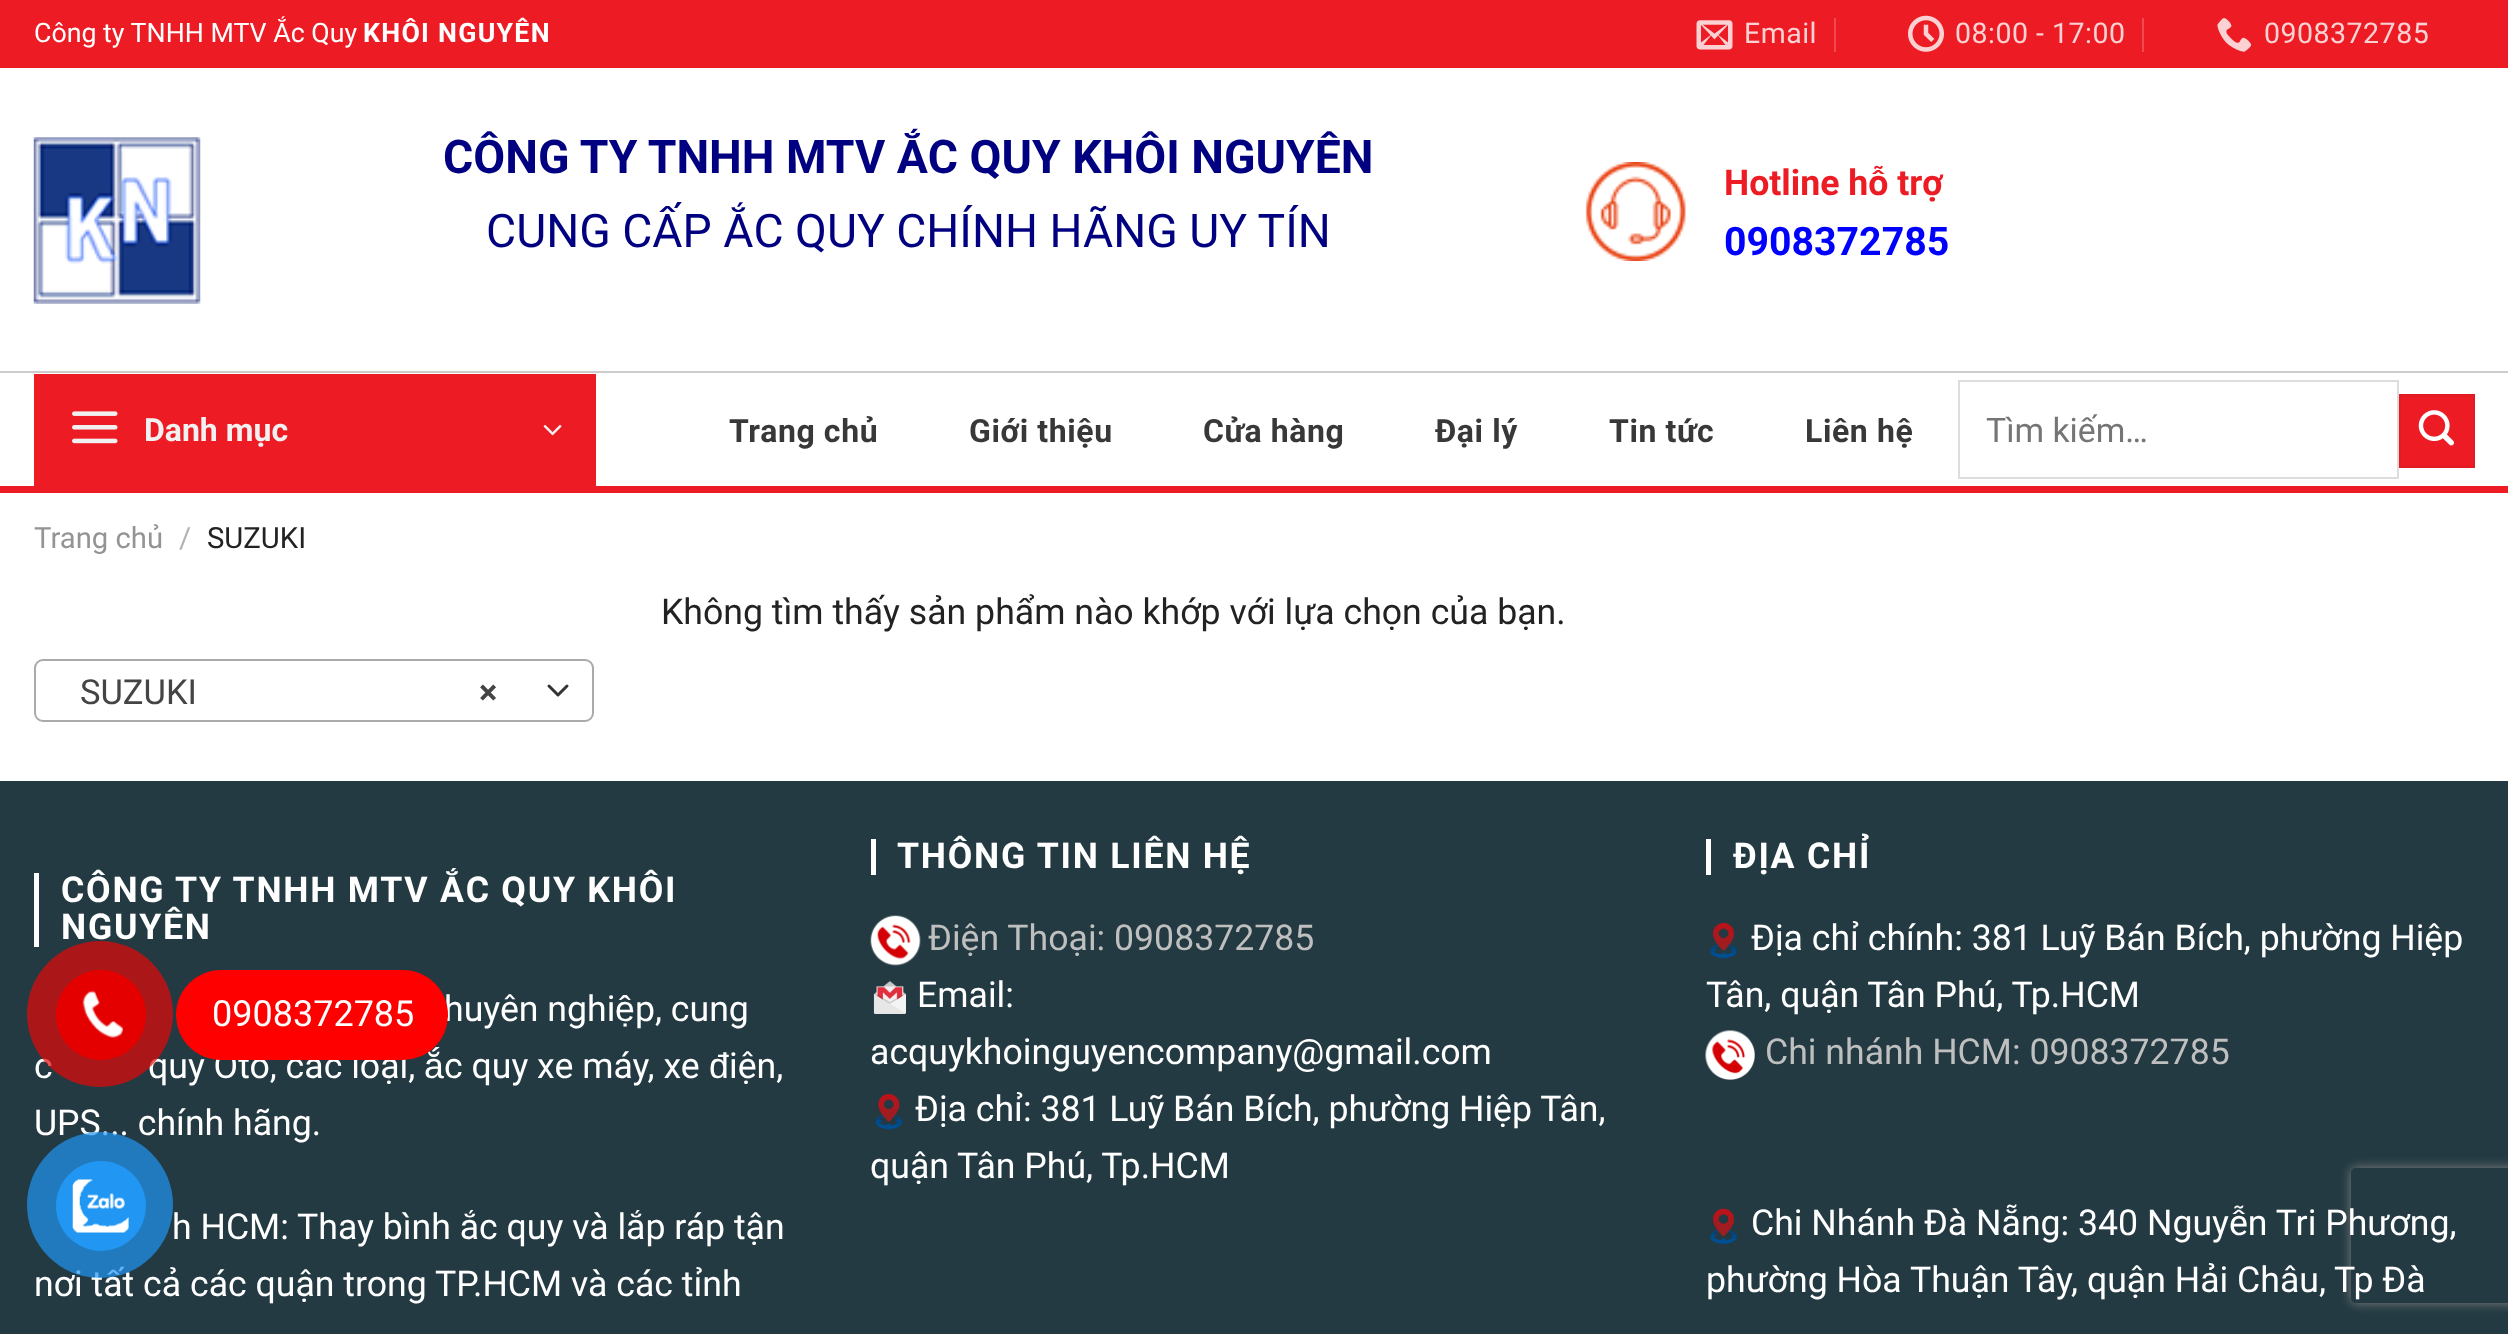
<?xml version="1.0" encoding="UTF-8"?>
<svg xmlns="http://www.w3.org/2000/svg" width="2508" height="1334">
    <defs>
        <clipPath id="clip1"><path d="M 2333 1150 H 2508 V 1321 H 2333 Z M 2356 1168 H 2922 C 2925 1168 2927 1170 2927 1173 V 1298 C 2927 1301 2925 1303 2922 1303 H 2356 C 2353 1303 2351 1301 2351 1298 V 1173 C 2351 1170 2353 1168 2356 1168 Z" clip-rule="evenodd"/></clipPath>
        <filter id="blur1" x="-50%" y="-200%" width="200%" height="500%"><feGaussianBlur stdDeviation="5.5"/></filter>
    </defs>
    <rect width="100%" height="100%" fill="#FFFFFF"/>
    <rect x="0" y="0" width="2508" height="68" fill="#ED1C24"/>
    <text x="34" y="42" font-family="Roboto" font-size="26.75" fill="#FFFFFF">Công ty TNHH MTV Ắc Quy</text>
    <text x="363" y="42" font-family="Roboto" font-size="26.75" font-weight="700" letter-spacing="1.25" fill="#FFFFFF">KHÔI NGUYÊN</text>
    <image x="1696" y="20" width="37" height="30" href="img_01.png"/>
    <text x="1744" y="43" font-family="Roboto" font-size="28.5" letter-spacing="0.5" fill="#FBD2D3">Email</text>
    <rect x="1834" y="18" width="2" height="34" fill="#F14950"/>
    <image x="1908" y="15" width="36" height="37" href="img_02.png"/>
    <text x="1955" y="43" font-family="Roboto" font-size="28.5" letter-spacing="0.5" fill="#FBD2D3">08:00 - 17:00</text>
    <rect x="2142" y="18" width="2" height="34" fill="#F14950"/>
    <image x="2217" y="18" width="35" height="34" href="img_03.png"/>
    <text x="2264" y="43" font-family="Roboto" font-size="28.5" letter-spacing="0.5" fill="#FBD2D3">0908372785</text>
    <image x="33" y="137" width="168" height="167" href="img_04.png"/>
    <text x="443" y="173" font-family="Roboto" font-size="46.3" font-weight="700" fill="#000080">CÔNG TY TNHH MTV ẮC QUY KHÔI NGUYÊN</text>
    <text x="486" y="247" font-family="Roboto" font-size="46.3" fill="#000080">CUNG CẤP ẮC QUY CHÍNH HÃNG UY TÍN</text>
    <image x="1585" y="162" width="101" height="99" href="img_05.png"/>
    <text x="1724" y="195" font-family="Roboto" font-size="35.65" font-weight="700" fill="#ED1C24">Hotline hỗ trợ</text>
    <text x="1724" y="255" font-family="Roboto" font-size="39.25" font-weight="700" fill="#0000FF">0908372785</text>
    <rect x="0" y="371" width="2508" height="2" fill="#CCCCCC"/>
    <rect x="0" y="486" width="2508" height="7" fill="#ED1C24"/>
    <rect x="34" y="374" width="562" height="112" fill="#ED1C24"/>
    <image x="72" y="411" width="46" height="33" href="img_06.png"/>
    <text x="144" y="441" font-family="Roboto" font-size="32" font-weight="700" fill="#F1F1F1">Danh mục</text>
    <image x="543" y="424" width="19" height="12" href="img_07.png"/>
    <text x="729" y="442" font-family="Roboto" font-size="32" font-weight="700" letter-spacing="0.6" fill="#383838">Trang chủ</text>
    <text x="969" y="442" font-family="Roboto" font-size="32" font-weight="700" letter-spacing="0.6" fill="#383838">Giới thiệu</text>
    <text x="1203" y="442" font-family="Roboto" font-size="32" font-weight="700" letter-spacing="0.6" fill="#383838">Cửa hàng</text>
    <text x="1435" y="442" font-family="Roboto" font-size="32" font-weight="700" letter-spacing="0.6" fill="#383838">Đại lý</text>
    <text x="1609" y="442" font-family="Roboto" font-size="32" font-weight="700" letter-spacing="0.6" fill="#383838">Tin tức</text>
    <text x="1805" y="442" font-family="Roboto" font-size="32" font-weight="700" letter-spacing="0.6" fill="#383838">Liên hệ</text>
    <rect x="1959" y="381" width="439" height="97" fill="none" stroke="#DDDDDD" stroke-width="2"/>
    <text x="1986" y="442" font-family="Roboto" font-size="33.75" fill="#757575">Tìm kiếm…</text>
    <rect x="2400" y="395" width="74" height="72" fill="#ED1C24" stroke="#E11B22" stroke-width="2"/>
    <image x="2418" y="410" width="36" height="36" href="img_08.png"/>
    <text x="34" y="548" font-family="Roboto" font-size="29.25" fill="#949494">Trang chủ</text>
    <text x="179" y="548" font-family="Roboto" font-size="29.25" fill="#B2B2B2">/</text>
    <text x="207" y="548" font-family="Roboto" font-size="29.25" fill="#222222">SUZUKI</text>
    <text x="661" y="624" font-family="Roboto" font-size="35.65" fill="#222222">Không tìm thấy sản phẩm nào khớp với lựa chọn của bạn.</text>
    <path d="M 549 686 L 558 695 L 567 686" fill="none" stroke="#333333" stroke-width="3" stroke-linecap="round" stroke-linejoin="round"/>
    <rect x="35" y="660" width="558" height="61" rx="8" fill="none" stroke="#AAAAAA" stroke-width="2"/>
    <text x="80" y="704" font-family="Roboto" font-size="34.5" fill="#444444">SUZUKI</text>
    <text x="479" y="704" font-family="Roboto" font-size="34.5" font-weight="700" fill="#444444">×</text>
    <rect x="0" y="781" width="2508" height="553" fill="#233A42"/>
    <rect x="34" y="873" width="5" height="74" fill="#FFFFFF"/>
    <text font-family="Roboto" font-size="35.65" font-weight="700" letter-spacing="1.75" fill="#FFFFFF">
        <tspan x="61" y="902">CÔNG TY TNHH MTV ẮC QUY KHÔI</tspan>
        <tspan x="61" y="939">NGUYÊN</tspan>
    </text>
    <text x="444" y="1021" font-family="Roboto" font-size="35.65" fill="#FFFFFF">huyên nghi</text>
    <text x="615" y="1021" font-family="Liberation Sans" font-size="35.65" fill="#FFFFFF">ệ</text>
    <text x="635" y="1021" font-family="Roboto" font-size="35.65" fill="#FFFFFF">p, cung</text>
    <text x="34" y="1078" font-family="Roboto" font-size="35.65" fill="#FFFFFF">c</text>
    <text x="148" y="1078" font-family="Roboto" font-size="35.65" fill="#FFFFFF">quy Ôtô, các loại,</text>
    <text x="424" y="1078" font-family="Liberation Sans" font-size="35.65" fill="#FFFFFF">ắ</text>
    <text x="444" y="1078" font-family="Roboto" font-size="35.65" fill="#FFFFFF">c quy xe máy, xe</text>
    <text x="709" y="1078" font-family="Liberation Sans" font-size="35.65" fill="#FFFFFF">đ</text>
    <text x="729" y="1078" font-family="Roboto" font-size="35.65" fill="#FFFFFF">iện,</text>
    <text x="34" y="1135" font-family="Roboto" font-size="35.65" fill="#FFFFFF">UPS... chính hãng.</text>
    <text x="172" y="1239" font-family="Roboto" font-size="35.65" fill="#FFFFFF">h HCM: Thay bình ắc quy và lắp ráp tận</text>
    <text x="34" y="1296" font-family="Roboto" font-size="35.65" fill="#FFFFFF">nơi tất cả các quận trong TP.HCM và các tỉnh</text>
    <rect x="871" y="839" width="5" height="36" fill="#FFFFFF"/>
    <text x="897" y="868" font-family="Roboto" font-size="35.65" font-weight="700" letter-spacing="1.75" fill="#FFFFFF">THÔNG TIN LIÊN HỆ</text>
    <image x="870" y="915" width="51" height="51" href="img_09.png"/>
    <text x="928" y="950" font-family="Roboto" font-size="35.65" fill="#BFBFBF">Điện Thoại: 0908372785</text>
    <image x="873" y="981" width="33" height="33" href="img_10.png"/>
    <text x="917" y="1007" font-family="Roboto" font-size="35.65" fill="#FFFFFF">Email:</text>
    <text x="870" y="1064" font-family="Roboto" font-size="35.65" fill="#FFFFFF">acquykhoinguyencompany@gmail.com</text>
    <image x="875" y="1093" width="28" height="37" href="img_11.png"/>
    <text x="915" y="1121" font-family="Roboto" font-size="35.65" fill="#FFFFFF">Địa chỉ: 381 Luỹ Bán Bích, phường Hiệp Tân,</text>
    <text x="870" y="1178" font-family="Roboto" font-size="35.65" fill="#FFFFFF">quận Tân Phú, Tp.HCM</text>
    <rect x="1706" y="839" width="5" height="36" fill="#FFFFFF"/>
    <text x="1733" y="868" font-family="Roboto" font-size="35.65" font-weight="700" letter-spacing="1.75" fill="#FFFFFF">ĐỊA CHỈ</text>
    <image x="1710" y="922" width="27" height="37" href="img_12.png"/>
    <text x="1751" y="950" font-family="Roboto" font-size="35.65" fill="#FFFFFF">Địa chỉ chính: 381 Luỹ Bán Bích, phường Hiệp</text>
    <text x="1706" y="1007" font-family="Roboto" font-size="35.65" fill="#FFFFFF">Tân, quận Tân Phú, Tp.HCM</text>
    <image x="1705" y="1030" width="50" height="50" href="img_13.png"/>
    <text x="1765" y="1064" font-family="Roboto" font-size="35.65" fill="#BFBFBF">Chi nhánh HCM: 0908372785</text>
    <image x="1710" y="1208" width="27" height="37" href="img_14.png"/>
    <g clip-path="url(#clip1)">
        <rect x="2351" y="1168" width="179" height="135" rx="5" fill="#808080" filter="url(#blur1)"/>
    </g>
    <text x="1751" y="1235" font-family="Roboto" font-size="35.65" fill="#FFFFFF">Chi Nhánh Đà Nẵng: 340 Nguyễn Tri Phương,</text>
    <text x="1706" y="1292" font-family="Roboto" font-size="35.65" fill="#FFFFFF">phường Hòa Thuận Tây, quận Hải Châu, Tp Đà</text>
    <circle cx="100" cy="1014" r="73" fill="#E60808" fill-opacity="0.7"/>
    <circle cx="101" cy="1015" r="45" fill="#E50000"/>
    <image x="82" y="990" width="41" height="48" href="img_15.png"/>
    <rect x="176" y="970" width="272" height="90" rx="45" fill="#FF0000"/>
    <text x="212" y="1026" font-family="Roboto" font-size="36" fill="#FFFFFF">0908372785</text>
    <circle cx="100" cy="1205" r="73" fill="#2196F3" fill-opacity="0.7"/>
    <circle cx="101" cy="1206" r="45" fill="#2196F3"/>
    <image x="72" y="1179" width="57" height="54" href="img_16.png"/>
</svg>
